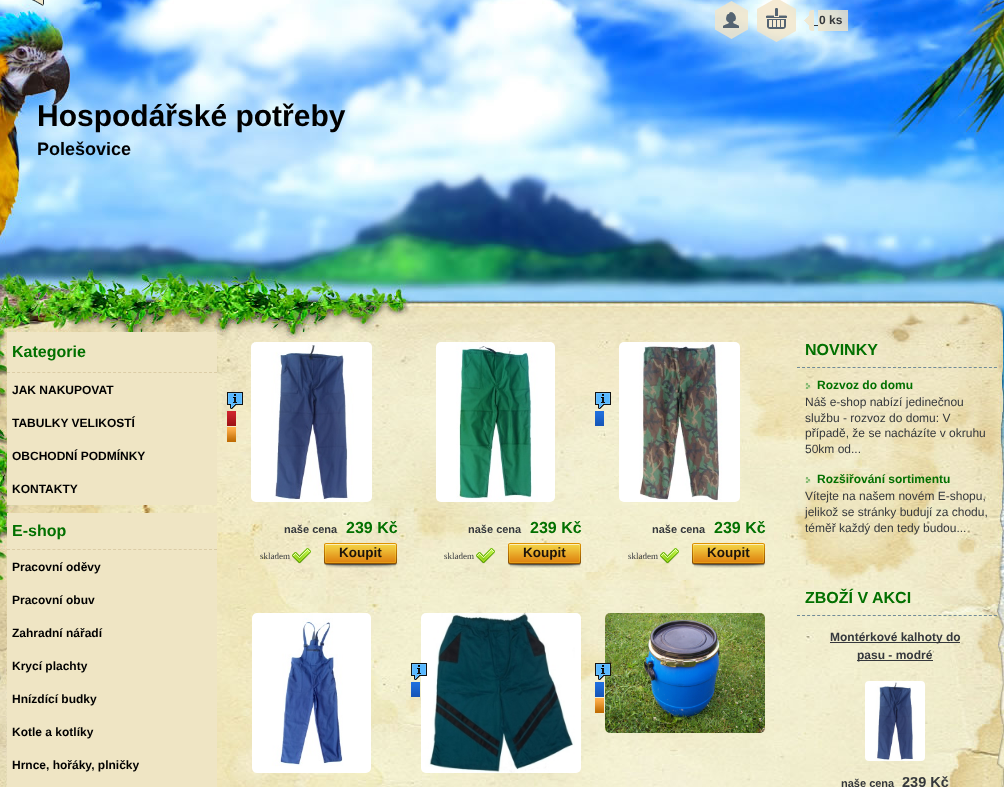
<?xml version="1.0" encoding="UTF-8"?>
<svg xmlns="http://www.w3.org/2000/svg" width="1004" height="787">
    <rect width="100%" height="100%" fill="#FFFFFF"/>
    <image x="0" y="0" width="1004" height="787" href="img_01.png"/>
    <image x="715" y="1" width="33" height="38" href="img_02.png"/>
    <image x="757" y="0" width="39" height="42" href="img_03.png"/>
    <image x="804" y="10" width="10" height="21" href="img_04.png"/>
    <rect x="818" y="10" width="30" height="21" fill="#F2E5C8" fill-opacity="0.8"/>
    <text x="819" y="24" font-family="Liberation Sans" font-size="12" font-weight="700" fill="#35383C">0 ks</text>
    <rect x="814" y="25" width="4" height="1" fill="#35383C"/>
    <image x="32" y="0" width="12" height="6" href="img_05.png"/>
    <text x="37" y="126" font-family="Liberation Sans" font-size="30" font-weight="700" fill="#000000">Hospodářské potřeby</text>
    <text x="37" y="155" font-family="Liberation Sans" font-size="18" font-weight="700" fill="#000000">Polešovice</text>
    <rect x="7" y="332" width="210" height="173" fill="#EFE5C4"/>
    <path d="M 7 372.5 H 217" fill="none" stroke="#DBCCA6" stroke-dasharray="3 2.05"/>
    <text x="12" y="357" font-family="Liberation Sans" font-size="16" font-weight="700" fill="#027000">Kategorie</text>
    <text x="12" y="394" font-family="Liberation Sans" font-size="12" font-weight="700" fill="#000000">JAK NAKUPOVAT</text>
    <text x="12" y="427" font-family="Liberation Sans" font-size="12" font-weight="700" fill="#000000">TABULKY VELIKOSTÍ</text>
    <text x="12" y="460" font-family="Liberation Sans" font-size="12" font-weight="700" fill="#000000">OBCHODNÍ PODMÍNKY</text>
    <text x="12" y="493" font-family="Liberation Sans" font-size="12" font-weight="700" fill="#000000">KONTAKTY</text>
    <rect x="7" y="513" width="210" height="274" fill="#EFE5C4"/>
    <path d="M 7 549.5 H 217" fill="none" stroke="#DBCCA6" stroke-dasharray="3 2.05"/>
    <text x="12" y="536" font-family="Liberation Sans" font-size="16" font-weight="700" fill="#027000">E-shop</text>
    <text x="12" y="571" font-family="Liberation Sans" font-size="12" font-weight="700" fill="#000000">Pracovní oděvy</text>
    <text x="12" y="604" font-family="Liberation Sans" font-size="12" font-weight="700" fill="#000000">Pracovní obuv</text>
    <text x="12" y="637" font-family="Liberation Sans" font-size="12" font-weight="700" fill="#000000">Zahradní nářadí</text>
    <text x="12" y="670" font-family="Liberation Sans" font-size="12" font-weight="700" fill="#000000">Krycí plachty</text>
    <text x="12" y="703" font-family="Liberation Sans" font-size="12" font-weight="700" fill="#000000">Hnízdící budky</text>
    <text x="12" y="736" font-family="Liberation Sans" font-size="12" font-weight="700" fill="#000000">Kotle a kotlíky</text>
    <text x="12" y="769" font-family="Liberation Sans" font-size="12" font-weight="700" fill="#000000">Hrnce, hořáky, plničky</text>
    <image x="227" y="392" width="16" height="17" href="img_06.png"/>
    <image x="227" y="411" width="9" height="15" href="img_07.png"/>
    <image x="227" y="427" width="9" height="15" href="img_08.png"/>
    <image x="251" y="342" width="121" height="160" href="img_09.png"/>
    <text x="284" y="533" font-family="Liberation Sans" font-size="11" font-weight="700" fill="#35383C">naše cena</text>
    <text x="346" y="533" font-family="Liberation Sans" font-size="16" font-weight="700" fill="#027000">239 Kč</text>
    <image x="292" y="548" width="19" height="16" href="img_10.png"/>
    <text x="260" y="559" font-family="Liberation Serif" font-size="9" fill="#35383C">skladem</text>
    <image x="324" y="543" width="73" height="25" href="img_11.png"/>
    <text x="339" y="557" font-family="Liberation Sans" font-size="13.5" font-weight="700" fill="#1D130B">Koupit</text>
    <image x="436" y="342" width="119" height="160" href="img_12.png"/>
    <text x="468" y="533" font-family="Liberation Sans" font-size="11" font-weight="700" fill="#35383C">naše cena</text>
    <text x="530" y="533" font-family="Liberation Sans" font-size="16" font-weight="700" fill="#027000">239 Kč</text>
    <image x="476" y="548" width="19" height="16" href="img_13.png"/>
    <text x="444" y="559" font-family="Liberation Serif" font-size="9" fill="#35383C">skladem</text>
    <image x="508" y="543" width="73" height="25" href="img_14.png"/>
    <text x="523" y="557" font-family="Liberation Sans" font-size="13.5" font-weight="700" fill="#1D130B">Koupit</text>
    <image x="595" y="392" width="16" height="17" href="img_15.png"/>
    <image x="595" y="411" width="9" height="15" href="img_16.png"/>
    <image x="619" y="342" width="121" height="160" href="img_17.png"/>
    <text x="652" y="533" font-family="Liberation Sans" font-size="11" font-weight="700" fill="#35383C">naše cena</text>
    <text x="714" y="533" font-family="Liberation Sans" font-size="16" font-weight="700" fill="#027000">239 Kč</text>
    <image x="660" y="548" width="19" height="16" href="img_18.png"/>
    <text x="628" y="559" font-family="Liberation Serif" font-size="9" fill="#35383C">skladem</text>
    <image x="692" y="543" width="73" height="25" href="img_19.png"/>
    <text x="707" y="557" font-family="Liberation Sans" font-size="13.5" font-weight="700" fill="#1D130B">Koupit</text>
    <image x="252" y="613" width="119" height="160" href="img_20.png"/>
    <image x="421" y="613" width="160" height="160" href="img_22.png"/>
    <image x="411" y="663" width="16" height="17" href="img_21.png"/>
    <image x="411" y="682" width="9" height="15" href="img_16.png"/>
    <image x="605" y="613" width="160" height="120" href="img_24.png"/>
    <image x="595" y="663" width="16" height="17" href="img_23.png"/>
    <image x="595" y="682" width="9" height="15" href="img_16.png"/>
    <image x="595" y="698" width="9" height="15" href="img_08.png"/>
    <path d="M 797 367.5 H 997" fill="none" stroke="#718B98" stroke-dasharray="3 2.05"/>
    <text x="805" y="355" font-family="Liberation Sans" font-size="16" font-weight="700" fill="#027000">NOVINKY</text>
    <image x="805" y="383" width="6" height="6" href="img_25.png"/>
    <text x="817" y="389" font-family="Liberation Sans" font-size="12" font-weight="700" fill="#027000">Rozvoz do domu</text>
    <text font-family="Liberation Sans" font-size="12" fill="#35383C">
        <tspan x="805" y="406">Náš e-shop nabízí jedinečnou</tspan>
        <tspan x="805" y="422">službu - rozvoz do domu: V</tspan>
        <tspan x="805" y="437">případě, že se nacházíte v okruhu</tspan>
        <tspan x="805" y="453">50km od...</tspan>
    </text>
    <image x="805" y="477" width="6" height="6" href="img_26.png"/>
    <text x="817" y="483" font-family="Liberation Sans" font-size="12" font-weight="700" fill="#027000">Rozšiřování sortimentu</text>
    <text font-family="Liberation Sans" font-size="12" fill="#35383C">
        <tspan x="805" y="500">Vítejte na našem novém E-shopu,</tspan>
        <tspan x="805" y="516">jelikož se stránky budují za chodu,</tspan>
        <tspan x="805" y="532">téměř každý den tedy budou...</tspan>
    </text>
    <path d="M 797 615.5 H 997" fill="none" stroke="#718B98" stroke-dasharray="3 2.05"/>
    <text x="805" y="603" font-family="Liberation Sans" font-size="16" font-weight="700" fill="#027000">ZBOŽÍ V AKCI</text>
    <rect x="830" y="642" width="130" height="1" fill="#35383C"/>
    <text x="830" y="641" font-family="Liberation Sans" font-size="12" font-weight="700" fill="#35383C">Montérkové kalhoty do</text>
    <rect x="857" y="660" width="76" height="1" fill="#35383C"/>
    <text x="857" y="659" font-family="Liberation Sans" font-size="12" font-weight="700" fill="#35383C">pasu - modré</text>
    <image x="865" y="681" width="60" height="80" href="img_27.png"/>
    <text x="841" y="787" font-family="Liberation Sans" font-size="11" font-weight="700" fill="#35383C">naše cena</text>
    <text x="902" y="787" font-family="Liberation Sans" font-size="14.5" font-weight="700" fill="#35383C">239 Kč</text>
</svg>
